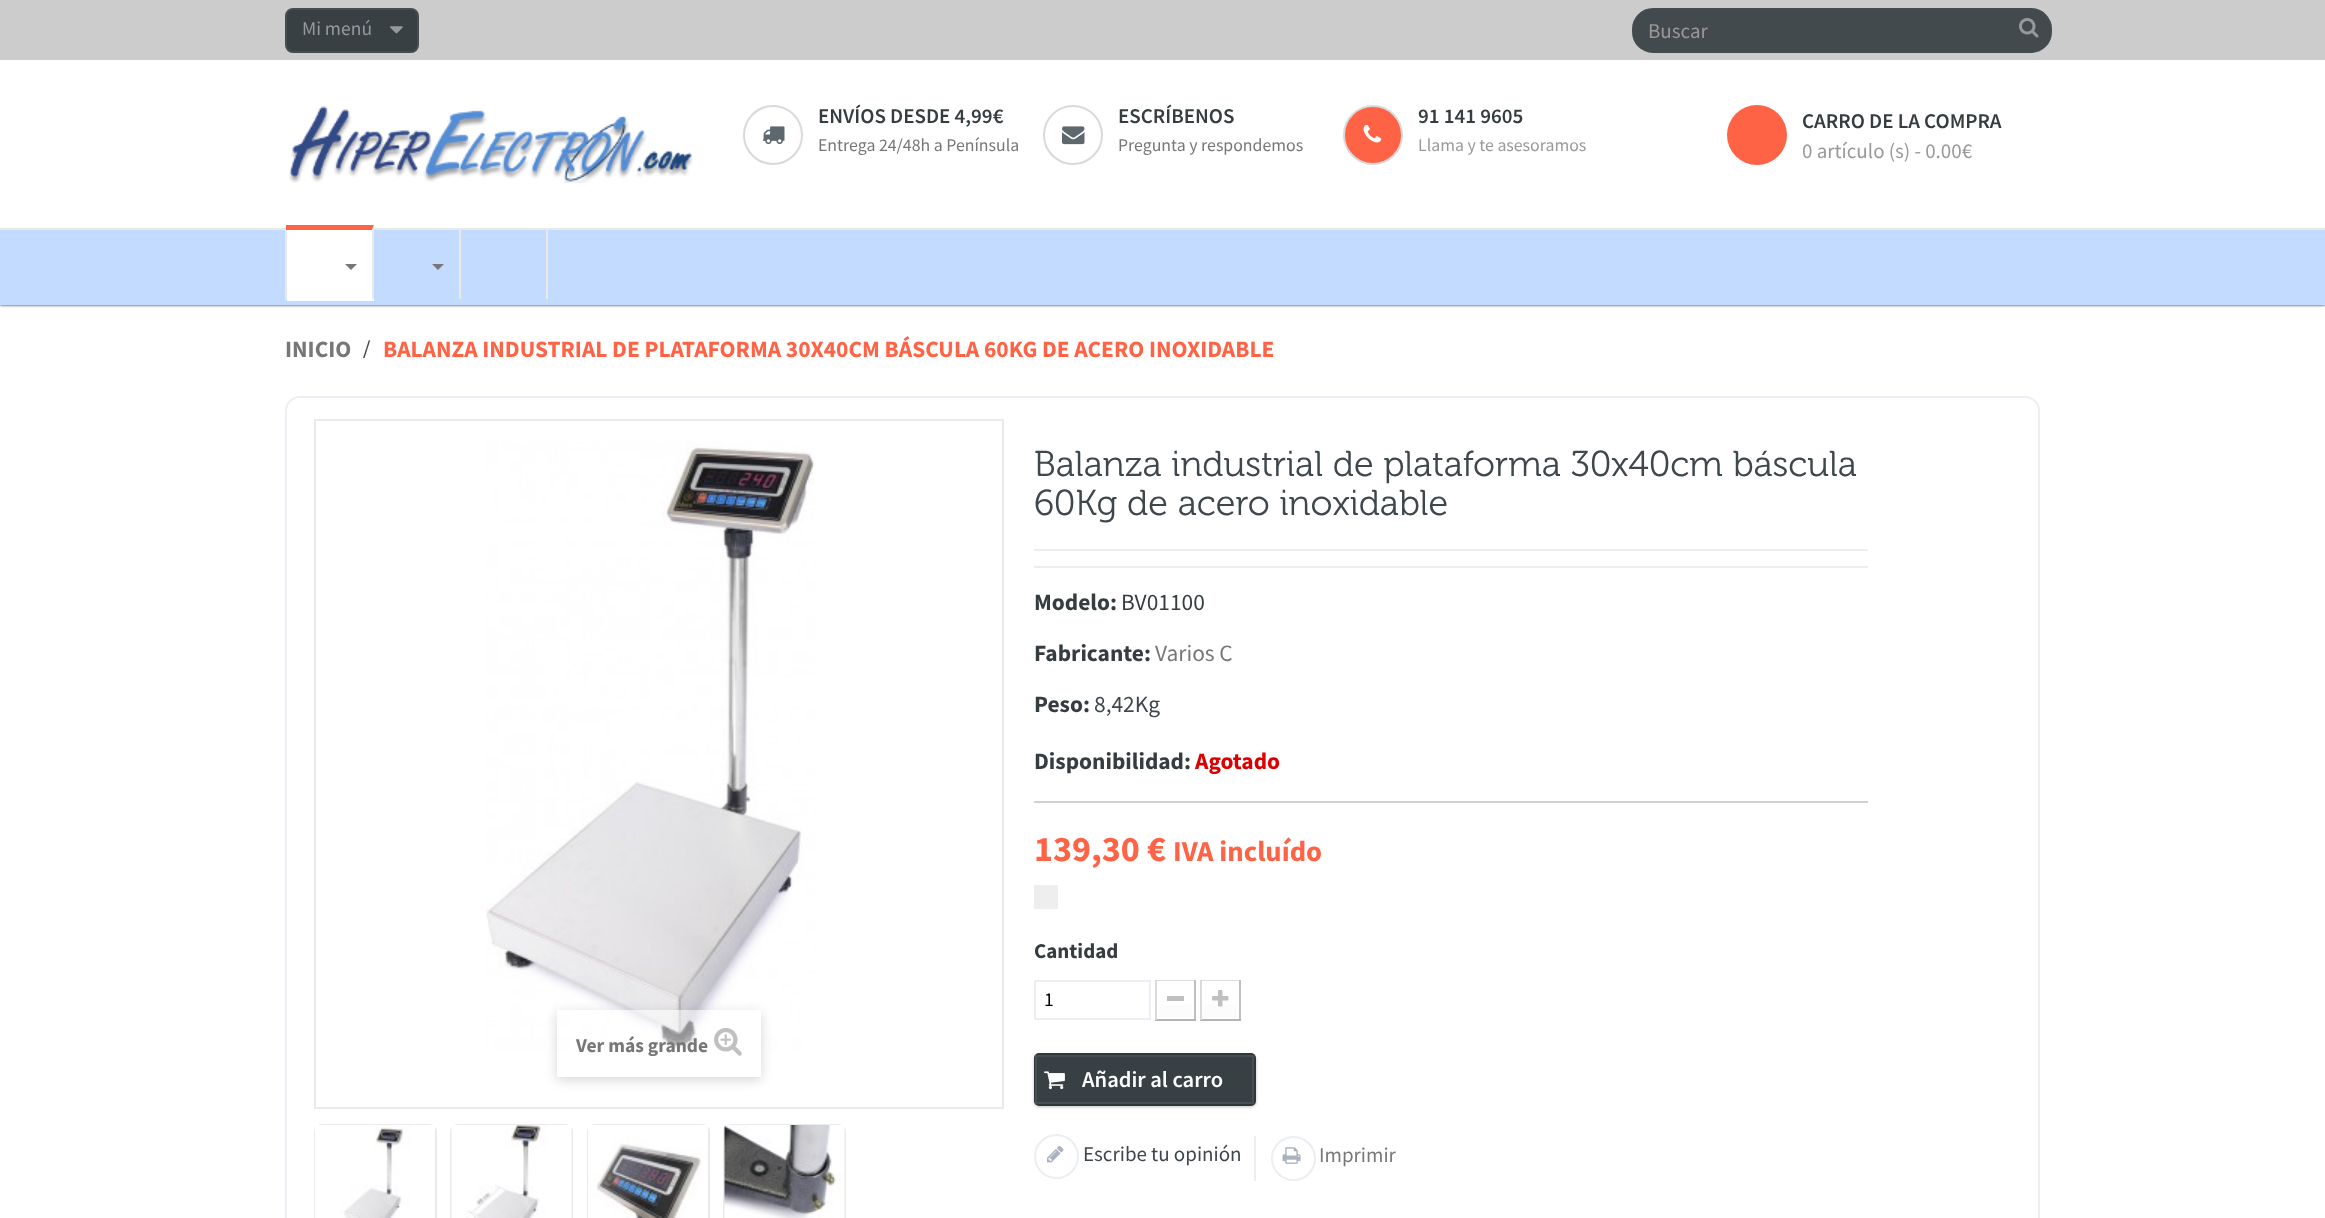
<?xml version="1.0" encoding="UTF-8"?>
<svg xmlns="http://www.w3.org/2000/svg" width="2325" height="1218">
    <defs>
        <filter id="blur1" x="-50%" y="-200%" width="200%" height="500%"><feGaussianBlur stdDeviation="1.5"/></filter>
        <clipPath id="clip1"><path d="M 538 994 H 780 V 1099 H 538 Z M 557 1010 H 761 V 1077 H 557 Z" clip-rule="evenodd"/></clipPath>
        <filter id="blur2" x="-50%" y="-200%" width="200%" height="500%"><feGaussianBlur stdDeviation="6"/></filter>
        <linearGradient id="g1" gradientUnits="userSpaceOnUse" x1="1175" y1="983" x2="1175" y2="1017"><stop offset="0" stop-color="#FFFFFF"/><stop offset="1" stop-color="#FBFBFB"/></linearGradient>
        <linearGradient id="g2" gradientUnits="userSpaceOnUse" x1="1220" y1="983" x2="1220" y2="1017"><stop offset="0" stop-color="#FFFFFF"/><stop offset="1" stop-color="#FBFBFB"/></linearGradient>
    </defs>
    <rect width="100%" height="100%" fill="#FFFFFF"/>
    <rect x="0" y="0" width="2325" height="305" fill="#121212" filter="url(#blur1)"/>
    <rect x="0" y="60" width="2325" height="168" fill="#FFFFFF"/>
    <rect x="0" y="0" width="2325" height="60" fill="#CCCCCC"/>
    <rect x="286" y="9" width="132" height="43" rx="7" fill="#394044" stroke="#454D50" stroke-width="2"/>
    <text x="302" y="35" font-family="Source Sans Pro" font-size="19.5" fill="#93999D">Mi menú</text>
    <image x="390" y="26" width="13" height="8" href="img_01.png"/>
    <image x="289" y="106" width="404" height="77" href="img_02.png"/>
    <rect x="1633" y="9" width="418" height="43" rx="20" fill="#434A4E" stroke="#454C50" stroke-width="2"/>
    <text x="1648" y="38" font-family="Source Sans Pro" font-size="21" fill="#999999">Buscar</text>
    <image x="2019" y="18" width="20" height="20" href="img_03.png"/>
    <circle cx="773" cy="135" r="29" fill="none" stroke="#D9D9D9" stroke-width="2"/>
    <image x="762" y="126" width="23" height="19" href="img_04.png"/>
    <text x="818" y="123" font-family="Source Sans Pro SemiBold" font-size="21" font-weight="600" fill="#353D41">ENVÍOS DESDE 4,99€</text>
    <text x="818" y="151" font-family="Source Sans Pro" font-size="17.8" fill="#777777">Entrega 24/48h a Península</text>
    <circle cx="1073" cy="135" r="29" fill="none" stroke="#D9D9D9" stroke-width="2"/>
    <image x="1062" y="126" width="23" height="19" href="img_05.png"/>
    <text x="1118" y="123" font-family="Source Sans Pro SemiBold" font-size="21" font-weight="600" fill="#353D41">ESCRÍBENOS</text>
    <text x="1118" y="151" font-family="Source Sans Pro" font-size="17.8" fill="#777777">Pregunta y respondemos</text>
    <circle cx="1373" cy="135" r="29" fill="#FF6346" stroke="#D9D9D9" stroke-width="2"/>
    <image x="1363" y="124" width="19" height="19" href="img_06.png"/>
    <text x="1418" y="123" font-family="Source Sans Pro SemiBold" font-size="21" font-weight="600" fill="#353D41">91 141 9605</text>
    <text x="1418" y="151" font-family="Source Sans Pro" font-size="17.8" fill="#999999">Llama y te asesoramos</text>
    <circle cx="1757" cy="135" r="30" fill="#FF6346"/>
    <text x="1802" y="128" font-family="Source Sans Pro SemiBold" font-size="21" font-weight="600" fill="#353D41">CARRO DE LA COMPRA</text>
    <text x="1802" y="158" font-family="Source Sans Pro" font-size="21" fill="#999999">0 artículo (s) - 0.00€</text>
    <rect x="0" y="230" width="2325" height="75" fill="#C2DBFF"/>
    <rect x="0" y="228" width="2325" height="2" fill="#E9E9E9"/>
    <rect x="285" y="230" width="2" height="70" fill="#E9E9E9"/>
    <rect x="287" y="228" width="87" height="71" fill="#FFFFFF"/>
    <path d="M 286 225 H 374 L 372 230 H 286 Z" fill="#FF6346"/>
    <path d="M 374 225 V 300 L 372 298 V 230 Z" fill="#E9E9E9"/>
    <rect x="287" y="299" width="87" height="2" fill="#FFFFFF"/>
    <path d="M 345 264 H 357 L 351 270 Z" fill="#777777"/>
    <rect x="459" y="230" width="2" height="69" fill="#E9E9E9"/>
    <path d="M 432 264 H 444 L 438 270 Z" fill="#777777"/>
    <rect x="546" y="230" width="2" height="69" fill="#E9E9E9"/>
    <text x="285" y="357" font-family="Source Sans Pro" font-size="23.4" font-weight="700" fill="#777777">INICIO</text>
    <text x="363" y="357" font-family="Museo" font-size="22.5" fill="#3E474B">/</text>
    <text x="383" y="357" font-family="Source Sans Pro" font-size="23.4" font-weight="700" fill="#FF6346">BALANZA INDUSTRIAL DE PLATAFORMA 30X40CM BÁSCULA 60KG DE ACERO INOXIDABLE</text>
    <rect x="286" y="397" width="1753" height="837" rx="14" fill="none" stroke="#EBEEF2" stroke-width="2"/>
    <rect x="315" y="420" width="688" height="688" fill="none" stroke="#EAEAEA" stroke-width="2"/>
    <image x="486" y="441" width="329" height="609" href="img_07.png"/>
    <g clip-path="url(#clip1)">
        <rect x="557" y="1013" width="204" height="67" fill="#000000" fill-opacity="0.16" filter="url(#blur2)"/>
    </g>
    <rect x="613" y="1010" width="148" height="67" fill="#FFFFFF" fill-opacity="0.5"/>
    <text x="576" y="1052" font-family="Source Sans Pro" font-size="19.5" font-weight="700" fill="#777777">Ver más grande</text>
    <image x="714" y="1028" width="28" height="28" href="img_08.png"/>
    <rect x="315" y="1125" width="121" height="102" rx="7" fill="none" stroke="#EAEAEA" stroke-width="2"/>
    <image x="315" y="1125" width="120" height="93" href="img_09.png"/>
    <rect x="451" y="1125" width="121" height="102" rx="7" fill="none" stroke="#EAEAEA" stroke-width="2"/>
    <image x="451" y="1125" width="121" height="93" href="img_10.png"/>
    <rect x="588" y="1125" width="121" height="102" rx="7" fill="none" stroke="#EAEAEA" stroke-width="2"/>
    <image x="588" y="1125" width="120" height="93" href="img_11.png"/>
    <rect x="724" y="1125" width="121" height="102" rx="7" fill="none" stroke="#EAEAEA" stroke-width="2"/>
    <image x="724" y="1125" width="121" height="93" href="img_12.png"/>
    <rect x="1034" y="549" width="834" height="2" fill="#EBEEF2"/>
    <text font-family="Museo" font-size="36" fill="#3E474B">
        <tspan x="1034" y="476">Balanza industrial de plataforma 30x40cm báscula</tspan>
        <tspan x="1034" y="515">60Kg de acero inoxidable</tspan>
    </text>
    <rect x="1034" y="566" width="834" height="2" fill="#EBEEF2"/>
    <text x="1034" y="610" font-family="Source Sans Pro" font-size="23.4" font-weight="700" fill="#353D41">Modelo:</text>
    <text x="1121" y="610" font-family="Source Sans Pro" font-size="23.4" fill="#353D41">BV01100</text>
    <text x="1034" y="661" font-family="Source Sans Pro" font-size="23.4" font-weight="700" fill="#353D41">Fabricante:</text>
    <text x="1155" y="661" font-family="Source Sans Pro" font-size="23.4" fill="#777777">Varios C</text>
    <text x="1034" y="712" font-family="Source Sans Pro" font-size="23.4" font-weight="700" fill="#353D41">Peso:</text>
    <text x="1094" y="712" font-family="Source Sans Pro" font-size="23.4" fill="#3E474B">8,42Kg</text>
    <text x="1034" y="769" font-family="Source Sans Pro" font-size="23.4" font-weight="700" fill="#353D41">Disponibilidad:</text>
    <text x="1195" y="769" font-family="Source Sans Pro" font-size="23.4" font-weight="700" fill="#DD0000">Agotado</text>
    <rect x="1034" y="801" width="834" height="2" fill="#D2D0D0"/>
    <text x="1034" y="861" font-family="Source Sans Pro" font-size="36" font-weight="700" fill="#FF6346">139,30 €</text>
    <text x="1173" y="861" font-family="Source Sans Pro" font-size="28.75" font-weight="700" fill="#FF6346">IVA incluído</text>
    <rect x="1034" y="885" width="24" height="24" fill="#EEEEEE"/>
    <text x="1034" y="958" font-family="Source Sans Pro" font-size="21" font-weight="700" fill="#353D41">Cantidad</text>
    <rect x="1035" y="981" width="115" height="38" fill="none" stroke="#EBEEF2" stroke-width="2"/>
    <text x="1044" y="1006" font-family="Source Sans Pro" font-size="19.5" fill="#000000">1</text>
    <rect x="1155" y="980" width="41" height="1" fill="#DEDCDC"/>
    <rect x="1194" y="980" width="2" height="40" fill="#C1BFBF"/>
    <rect x="1155" y="1019" width="41" height="2" fill="#B5B4B4"/>
    <rect x="1155" y="980" width="2" height="40" fill="#DAD8D8"/>
    <rect x="1159" y="1004" width="33" height="13" fill="url(#g1)"/>
    <rect x="1167" y="996" width="17" height="5" fill="#C0C0C0"/>
    <rect x="1200" y="980" width="41" height="1" fill="#DEDCDC"/>
    <rect x="1239" y="980" width="2" height="40" fill="#C1BFBF"/>
    <rect x="1200" y="1019" width="41" height="2" fill="#B5B4B4"/>
    <rect x="1200" y="980" width="2" height="40" fill="#DAD8D8"/>
    <rect x="1204" y="1004" width="33" height="13" fill="url(#g2)"/>
    <image x="1212" y="990" width="17" height="17" href="img_13.png"/>
    <rect x="1034" y="1055" width="222" height="52" rx="5" fill="#000000" fill-opacity="0.24" filter="url(#blur1)"/>
    <rect x="1035" y="1054" width="220" height="51" rx="4" fill="#384044" stroke="#30373A" stroke-width="2"/>
    <rect x="1036" y="1056" width="217" height="47" fill="none" stroke="#454F54" stroke-width="2"/>
    <image x="1044" y="1071" width="21" height="19" href="img_14.png"/>
    <text x="1082" y="1087" font-family="Source Sans Pro SemiBold" font-size="22.5" font-weight="600" fill="#FFFFFF">Añadir al carro</text>
    <circle cx="1056.5" cy="1156.5" r="21.5" fill="none" stroke="#EBEEF2" stroke-width="2"/>
    <image x="1047" y="1146" width="17" height="17" href="img_15.png"/>
    <text x="1083" y="1161" font-family="Source Sans Pro" font-size="21" fill="#3E474B">Escribe tu opinión</text>
    <rect x="1254" y="1136" width="2" height="45" fill="#EBEEF2"/>
    <circle cx="1293.5" cy="1158.5" r="21.5" fill="none" stroke="#EBEEF2" stroke-width="2"/>
    <image x="1282" y="1147" width="19" height="17" href="img_16.png"/>
    <text x="1319" y="1162" font-family="Source Sans Pro" font-size="21" fill="#777777">Imprimir</text>
</svg>
